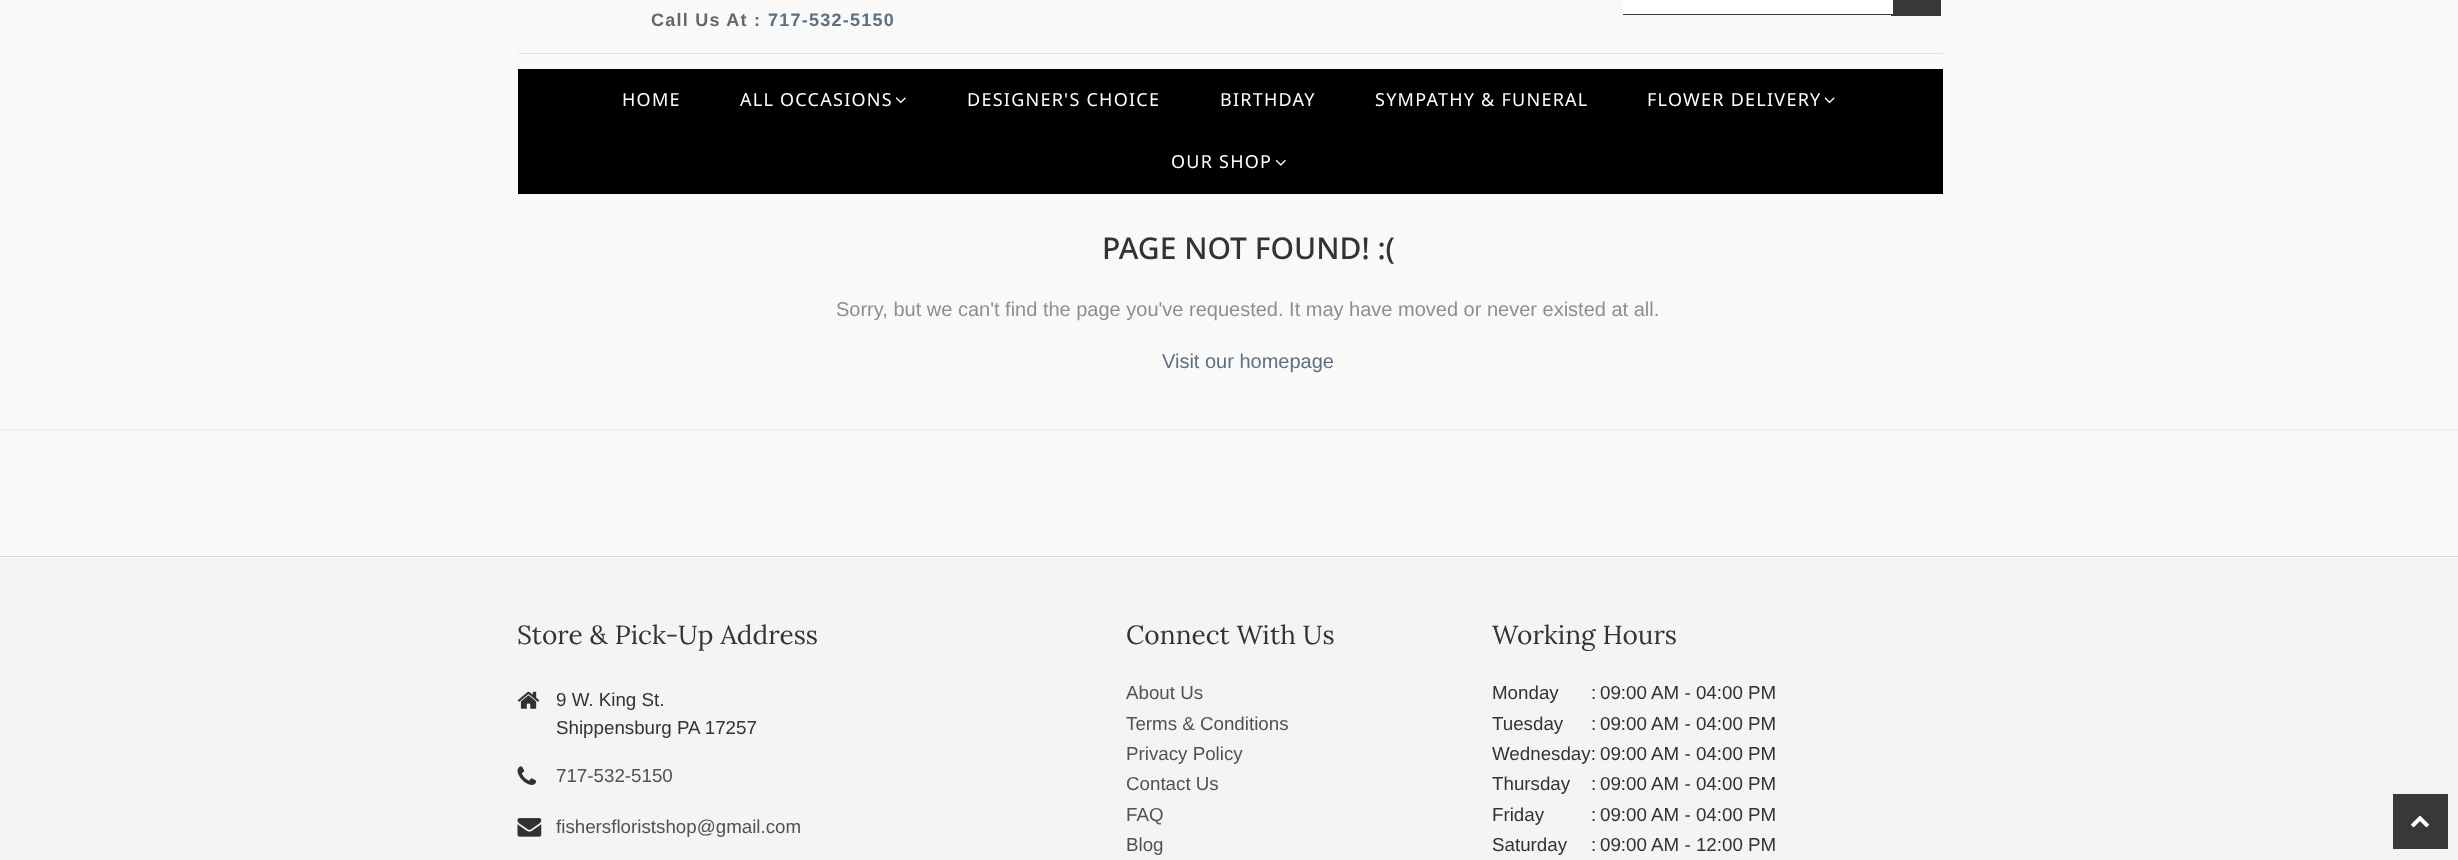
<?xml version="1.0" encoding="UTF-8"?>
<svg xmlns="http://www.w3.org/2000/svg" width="2458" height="860">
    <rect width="100%" height="100%" fill="#F9F9F9"/>
    <rect x="518" y="53" width="1425" height="1" fill="#E2E2E2"/>
    <rect x="1891" y="0" width="50" height="16" fill="#383838"/>
    <rect x="1623" y="0" width="270" height="14" fill="#FFFFFF"/>
    <rect x="1623" y="14" width="270" height="1" fill="#383838"/>
    <text x="651" y="26" font-family="Liberation Sans" font-size="18" font-weight="700" letter-spacing="1.25" fill="#676767">Call Us At :</text>
    <text x="768" y="26" font-family="Liberation Sans" font-size="18" font-weight="700" letter-spacing="1.25" fill="#5B7083">717-532-5150</text>
    <rect x="518" y="69" width="1425" height="125" fill="#000000"/>
    <text x="622" y="106" font-family="Noto Sans" font-size="18" letter-spacing="1.25" fill="#FFFFFF">HOME</text>
    <text x="740" y="106" font-family="Noto Sans" font-size="18" letter-spacing="1.25" fill="#FFFFFF">ALL OCCASIONS</text>
    <image x="895" y="97" width="11" height="7" href="img_01.png"/>
    <text x="967" y="106" font-family="Noto Sans" font-size="18" letter-spacing="1.25" fill="#FFFFFF">DESIGNER'S CHOICE</text>
    <text x="1220" y="106" font-family="Noto Sans" font-size="18" letter-spacing="1.25" fill="#FFFFFF">BIRTHDAY</text>
    <text x="1375" y="106" font-family="Noto Sans" font-size="18" letter-spacing="1.25" fill="#FFFFFF">SYMPATHY &amp; FUNERAL</text>
    <text x="1647" y="106" font-family="Noto Sans" font-size="18" letter-spacing="1.25" fill="#FFFFFF">FLOWER DELIVERY</text>
    <image x="1824" y="97" width="11" height="7" href="img_02.png"/>
    <text x="1171" y="168" font-family="Noto Sans" font-size="18" letter-spacing="1.25" fill="#FFFFFF">OUR SHOP</text>
    <image x="1275" y="159" width="11" height="7" href="img_03.png"/>
    <text x="1102" y="259" font-family="Noto Sans" font-size="30" font-weight="500" fill="#333333">PAGE NOT FOUND! :(</text>
    <text x="836" y="316" font-family="Liberation Sans" font-size="20" fill="#8E8E8E">Sorry, but we can't find the page you've requested. It may have moved or never existed at all.</text>
    <text x="1162" y="368" font-family="Liberation Sans" font-size="20" fill="#5B7083">Visit our homepage</text>
    <rect x="0" y="429" width="2458" height="1" fill="#EEEEEE"/>
    <rect x="0" y="556" width="2458" height="1" fill="#D4D4D4"/>
    <rect x="0" y="558" width="2458" height="302" fill="#F4F4F4"/>
    <text x="517" y="644" font-family="Lora" font-size="26.25" fill="#333333">Store &amp; Pick-Up Address</text>
    <image x="517" y="691" width="23" height="18" href="img_04.png"/>
    <text font-family="Liberation Sans" font-size="18.75" fill="#333333">
        <tspan x="556" y="706">9 W. King St.</tspan>
        <tspan x="556" y="734">Shippensburg PA 17257</tspan>
    </text>
    <image x="517" y="766" width="20" height="19" href="img_05.png"/>
    <text x="556" y="782" font-family="Liberation Sans" font-size="18.75" fill="#525252">717-532-5150</text>
    <image x="517" y="818" width="25" height="19" href="img_06.png"/>
    <text x="556" y="833" font-family="Liberation Sans" font-size="18.75" fill="#525252">fishersfloristshop@gmail.com</text>
    <text x="1126" y="644" font-family="Lora" font-size="26.25" fill="#333333">Connect With Us</text>
    <text font-family="Liberation Sans" font-size="18.75" fill="#525252">
        <tspan x="1126" y="699">About Us</tspan>
        <tspan x="1126" y="730">Terms &amp; Conditions</tspan>
        <tspan x="1126" y="760">Privacy Policy</tspan>
        <tspan x="1126" y="790">Contact Us</tspan>
        <tspan x="1126" y="821">FAQ</tspan>
        <tspan x="1126" y="851">Blog</tspan>
    </text>
    <text x="1492" y="644" font-family="Lora" font-size="26.25" fill="#333333">Working Hours</text>
    <text x="1492" y="699" font-family="Liberation Sans" font-size="18.75" fill="#333333">Monday</text>
    <text x="1591" y="699" font-family="Liberation Sans" font-size="18.75" fill="#333333">:</text>
    <text x="1600" y="699" font-family="Liberation Sans" font-size="18.75" fill="#333333">09:00 AM - 04:00 PM</text>
    <text x="1492" y="730" font-family="Liberation Sans" font-size="18.75" fill="#333333">Tuesday</text>
    <text x="1591" y="730" font-family="Liberation Sans" font-size="18.75" fill="#333333">:</text>
    <text x="1600" y="730" font-family="Liberation Sans" font-size="18.75" fill="#333333">09:00 AM - 04:00 PM</text>
    <text x="1492" y="760" font-family="Liberation Sans" font-size="18.75" fill="#333333">Wednesday:</text>
    <text x="1600" y="760" font-family="Liberation Sans" font-size="18.75" fill="#333333">09:00 AM - 04:00 PM</text>
    <text x="1492" y="790" font-family="Liberation Sans" font-size="18.75" fill="#333333">Thursday</text>
    <text x="1591" y="790" font-family="Liberation Sans" font-size="18.75" fill="#333333">:</text>
    <text x="1600" y="790" font-family="Liberation Sans" font-size="18.75" fill="#333333">09:00 AM - 04:00 PM</text>
    <text x="1492" y="821" font-family="Liberation Sans" font-size="18.75" fill="#333333">Friday</text>
    <text x="1591" y="821" font-family="Liberation Sans" font-size="18.75" fill="#333333">:</text>
    <text x="1600" y="821" font-family="Liberation Sans" font-size="18.75" fill="#333333">09:00 AM - 04:00 PM</text>
    <text x="1492" y="851" font-family="Liberation Sans" font-size="18.75" fill="#333333">Saturday</text>
    <text x="1591" y="851" font-family="Liberation Sans" font-size="18.75" fill="#333333">:</text>
    <text x="1600" y="851" font-family="Liberation Sans" font-size="18.75" fill="#333333">09:00 AM - 12:00 PM</text>
    <rect x="2393" y="794" width="55" height="55" fill="#383838"/>
    <image x="2411" y="815" width="18" height="13" href="img_07.png"/>
</svg>
